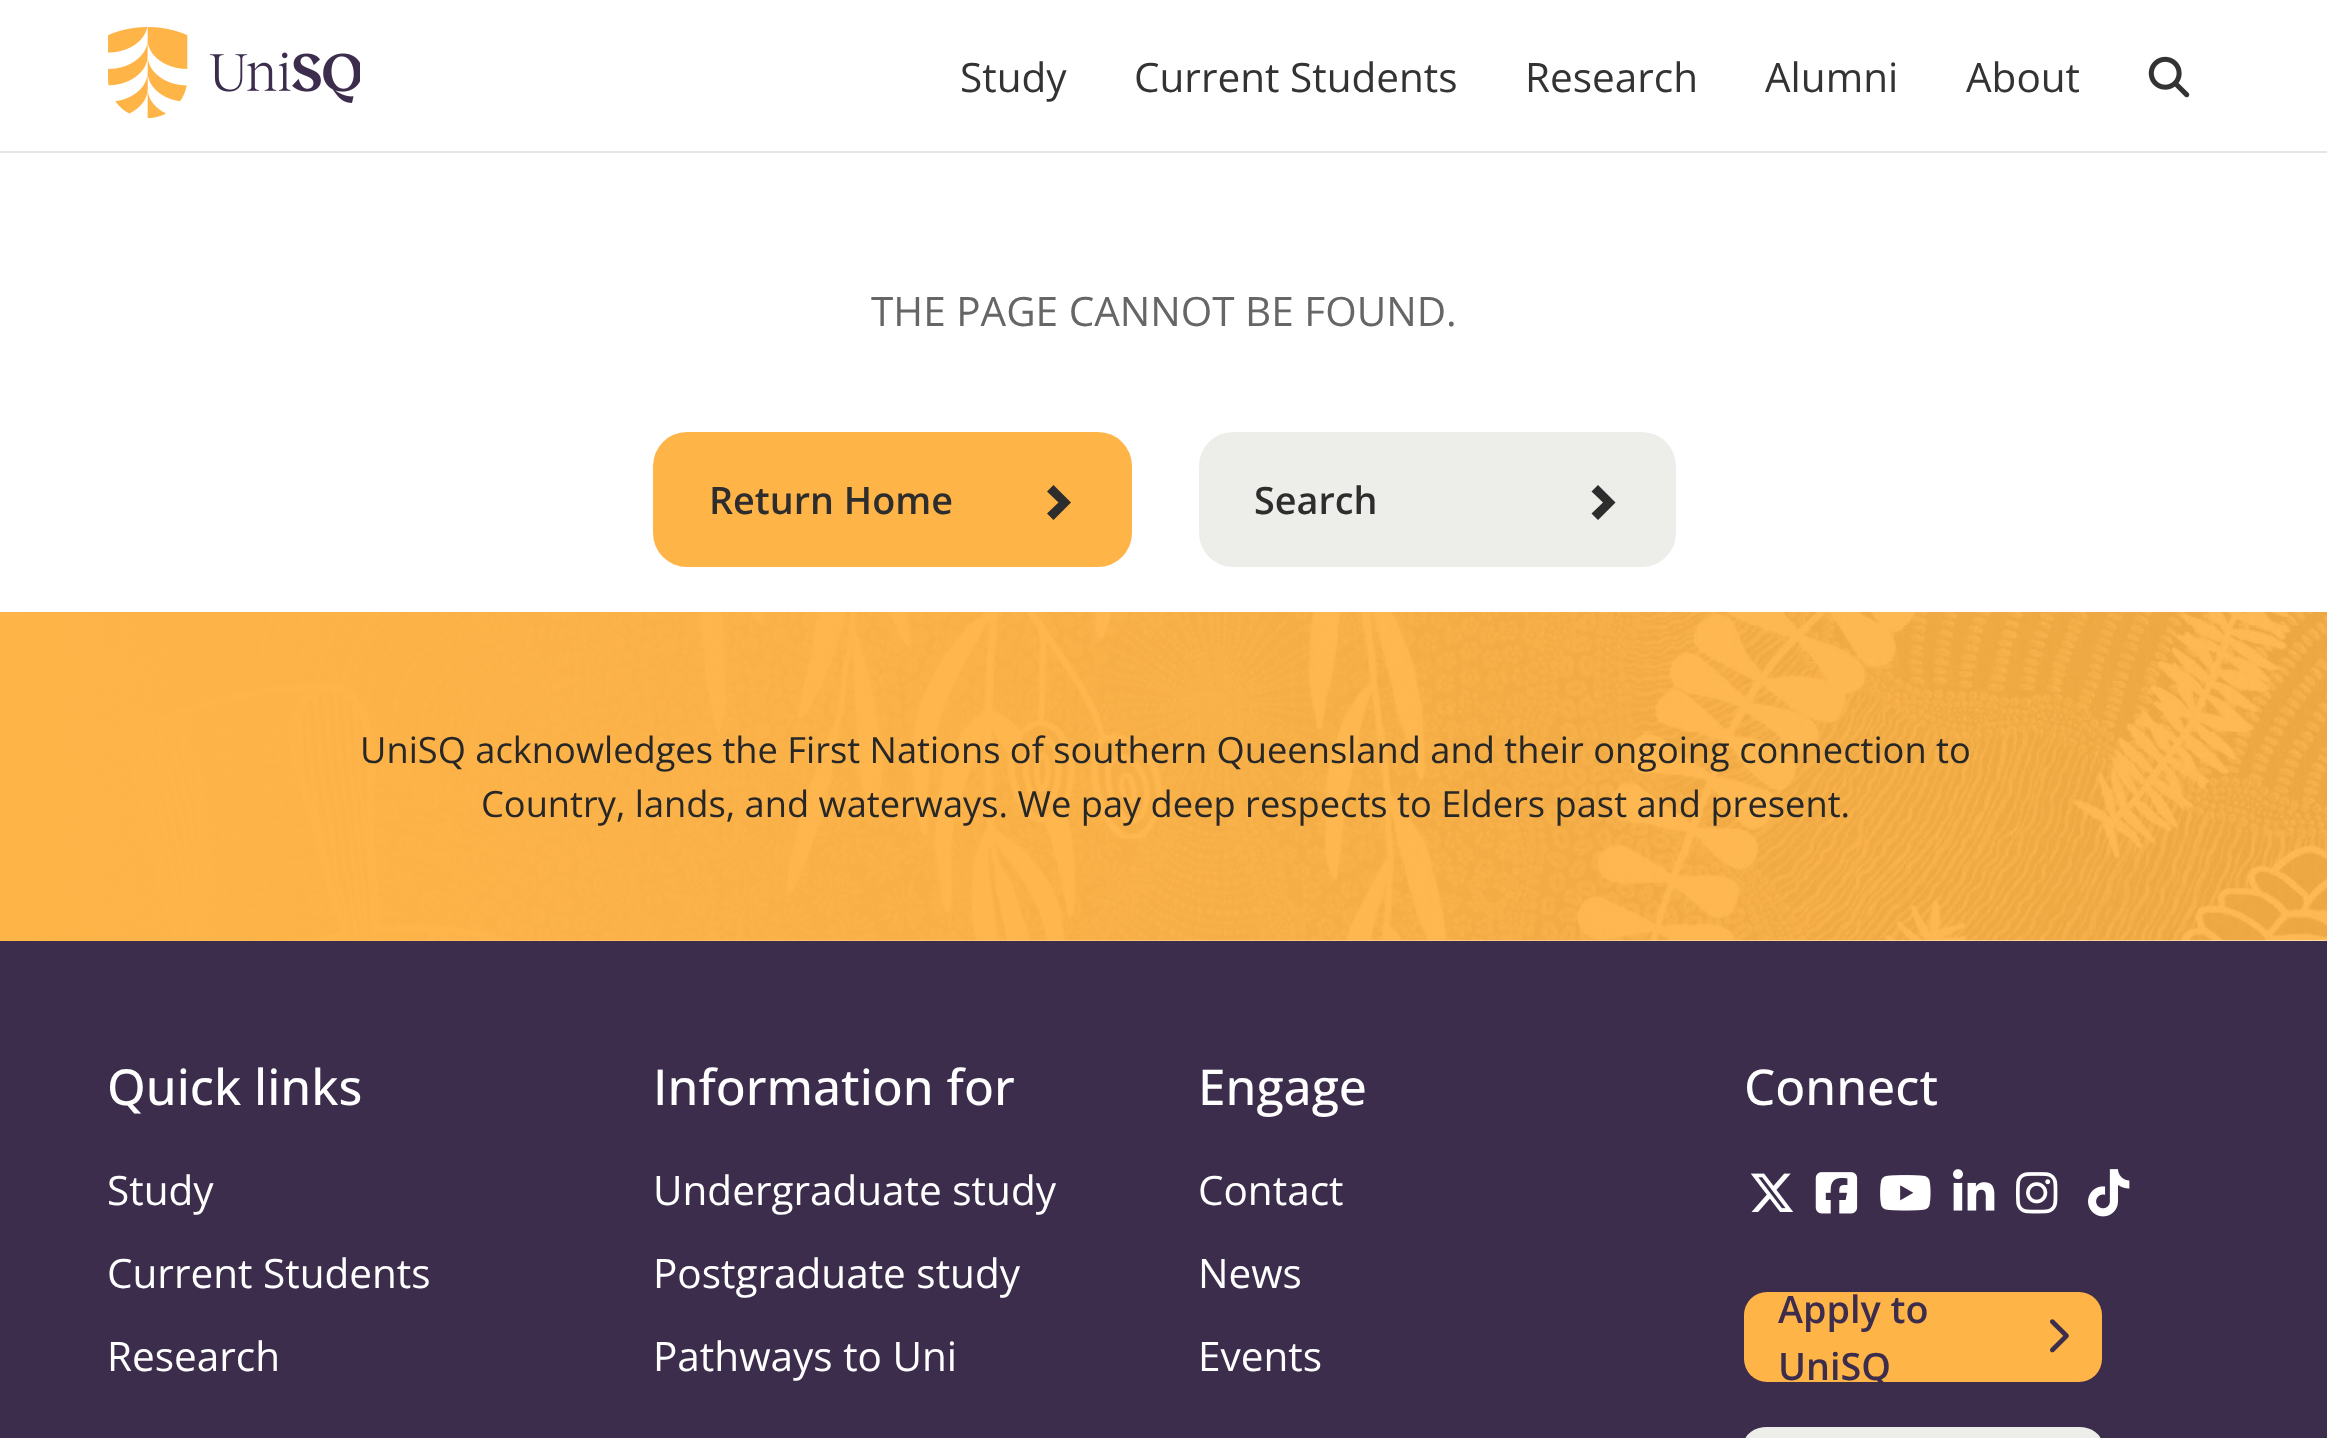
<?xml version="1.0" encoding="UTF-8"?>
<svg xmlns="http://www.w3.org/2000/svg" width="2327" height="1438">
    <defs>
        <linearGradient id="g1" gradientUnits="userSpaceOnUse" x1="0" y1="776" x2="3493" y2="776"><stop offset="0" stop-color="#FFB448"/><stop offset="1" stop-color="#FFB448" stop-opacity="0"/></linearGradient>
    </defs>
    <rect width="100%" height="100%" fill="#FFFFFF"/>
    <rect x="0" y="151" width="2327" height="2" fill="#E5E5E5"/>
    <image x="108" y="27" width="252" height="92" href="img_01.png"/>
    <text x="960" y="92" font-family="Open Sans" font-size="40.5" fill="#333333">Study</text>
    <text x="1134" y="92" font-family="Open Sans" font-size="40.5" fill="#333333">Current Students</text>
    <text x="1525" y="92" font-family="Open Sans" font-size="40.5" fill="#333333">Research</text>
    <text x="1765" y="92" font-family="Open Sans" font-size="40.5" fill="#333333">Alumni</text>
    <text x="1966" y="92" font-family="Open Sans" font-size="40.5" fill="#333333">About</text>
    <image x="2148" y="56" width="42" height="42" href="img_02.png"/>
    <text x="871" y="326" font-family="Open Sans" font-size="40.5" fill="#666666">THE PAGE CANNOT BE FOUND.</text>
    <rect x="653" y="432" width="479" height="135" rx="34" fill="#FFB448"/>
    <text x="709" y="514" font-family="Open Sans" font-size="37.75" font-weight="600" fill="#2D2D2D">Return Home</text>
    <path d="M 1071 502.5 L 1053.5 520 L 1047 513.5 L 1058.5 502.5 L 1047 491.5 L 1053.5 485 Z" fill="#2D2D2D"/>
    <rect x="1199" y="432" width="477" height="135" rx="34" fill="#EDEDEA"/>
    <text x="1254" y="514" font-family="Open Sans" font-size="37.75" font-weight="600" fill="#2D2D2D">Search</text>
    <path d="M 1615.5 502.5 L 1598 520 L 1591.5 513.5 L 1603 502.5 L 1591.5 491.5 L 1598 485 Z" fill="#2D2D2D"/>
    <image x="21" y="612" width="2306" height="329" href="img_03.png"/>
    <rect x="0" y="612" width="2327" height="329" fill="url(#g1)"/>
    <text x="360" y="763" font-family="Open Sans" font-size="36.25" fill="#272727">UniSQ acknowledges the First Nations of southern Queensland and their ongoing connection to</text>
    <text x="481" y="817" font-family="Open Sans" font-size="36.25" fill="#272727">Country, lands, and waterways. We pay deep respects to Elders past and present.</text>
    <rect x="0" y="941" width="2327" height="497" fill="#3C2D4D"/>
    <text x="107" y="1105" font-family="Open Sans" font-size="49.5" font-weight="500" fill="#FFFFFF">Quick links</text>
    <text x="107" y="1205" font-family="Open Sans" font-size="40.5" fill="#FFFFFF">Study</text>
    <text x="107" y="1288" font-family="Open Sans" font-size="40.5" fill="#FFFFFF">Current Students</text>
    <text x="107" y="1371" font-family="Open Sans" font-size="40.5" fill="#FFFFFF">Research</text>
    <text x="653" y="1105" font-family="Open Sans" font-size="49.5" font-weight="500" fill="#FFFFFF">Information for</text>
    <text x="653" y="1205" font-family="Open Sans" font-size="40.5" fill="#FFFFFF">Undergraduate study</text>
    <text x="653" y="1288" font-family="Open Sans" font-size="40.5" fill="#FFFFFF">Postgraduate study</text>
    <text x="653" y="1371" font-family="Open Sans" font-size="40.5" fill="#FFFFFF">Pathways to Uni</text>
    <text x="1198" y="1105" font-family="Open Sans" font-size="49.5" font-weight="500" fill="#FFFFFF">Engage</text>
    <text x="1198" y="1205" font-family="Open Sans" font-size="40.5" fill="#FFFFFF">Contact</text>
    <text x="1198" y="1288" font-family="Open Sans" font-size="40.5" fill="#FFFFFF">News</text>
    <text x="1198" y="1371" font-family="Open Sans" font-size="40.5" fill="#FFFFFF">Events</text>
    <text x="1744" y="1105" font-family="Open Sans" font-size="49.5" font-weight="500" fill="#FFFFFF">Connect</text>
    <image x="1750" y="1173" width="44" height="39" href="img_04.png"/>
    <image x="1815" y="1172" width="43" height="42" href="img_05.png"/>
    <image x="1880" y="1175" width="51" height="36" href="img_06.png"/>
    <image x="1953" y="1169" width="42" height="42" href="img_07.png"/>
    <image x="2016" y="1172" width="42" height="42" href="img_08.png"/>
    <image x="2088" y="1169" width="42" height="48" href="img_09.png"/>
    <rect x="1744" y="1292" width="358" height="90" rx="23" fill="#FFB448"/>
    <text font-family="Open Sans" font-size="37.75" font-weight="600" fill="#3C2D4D">
        <tspan x="1778" y="1323">Apply to</tspan>
        <tspan x="1778" y="1380">UniSQ</tspan>
    </text>
    <image x="2050" y="1319" width="19" height="34" href="img_10.png"/>
    <rect x="1744" y="1427" width="358" height="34" rx="23" fill="#EDEDEA"/>
</svg>
